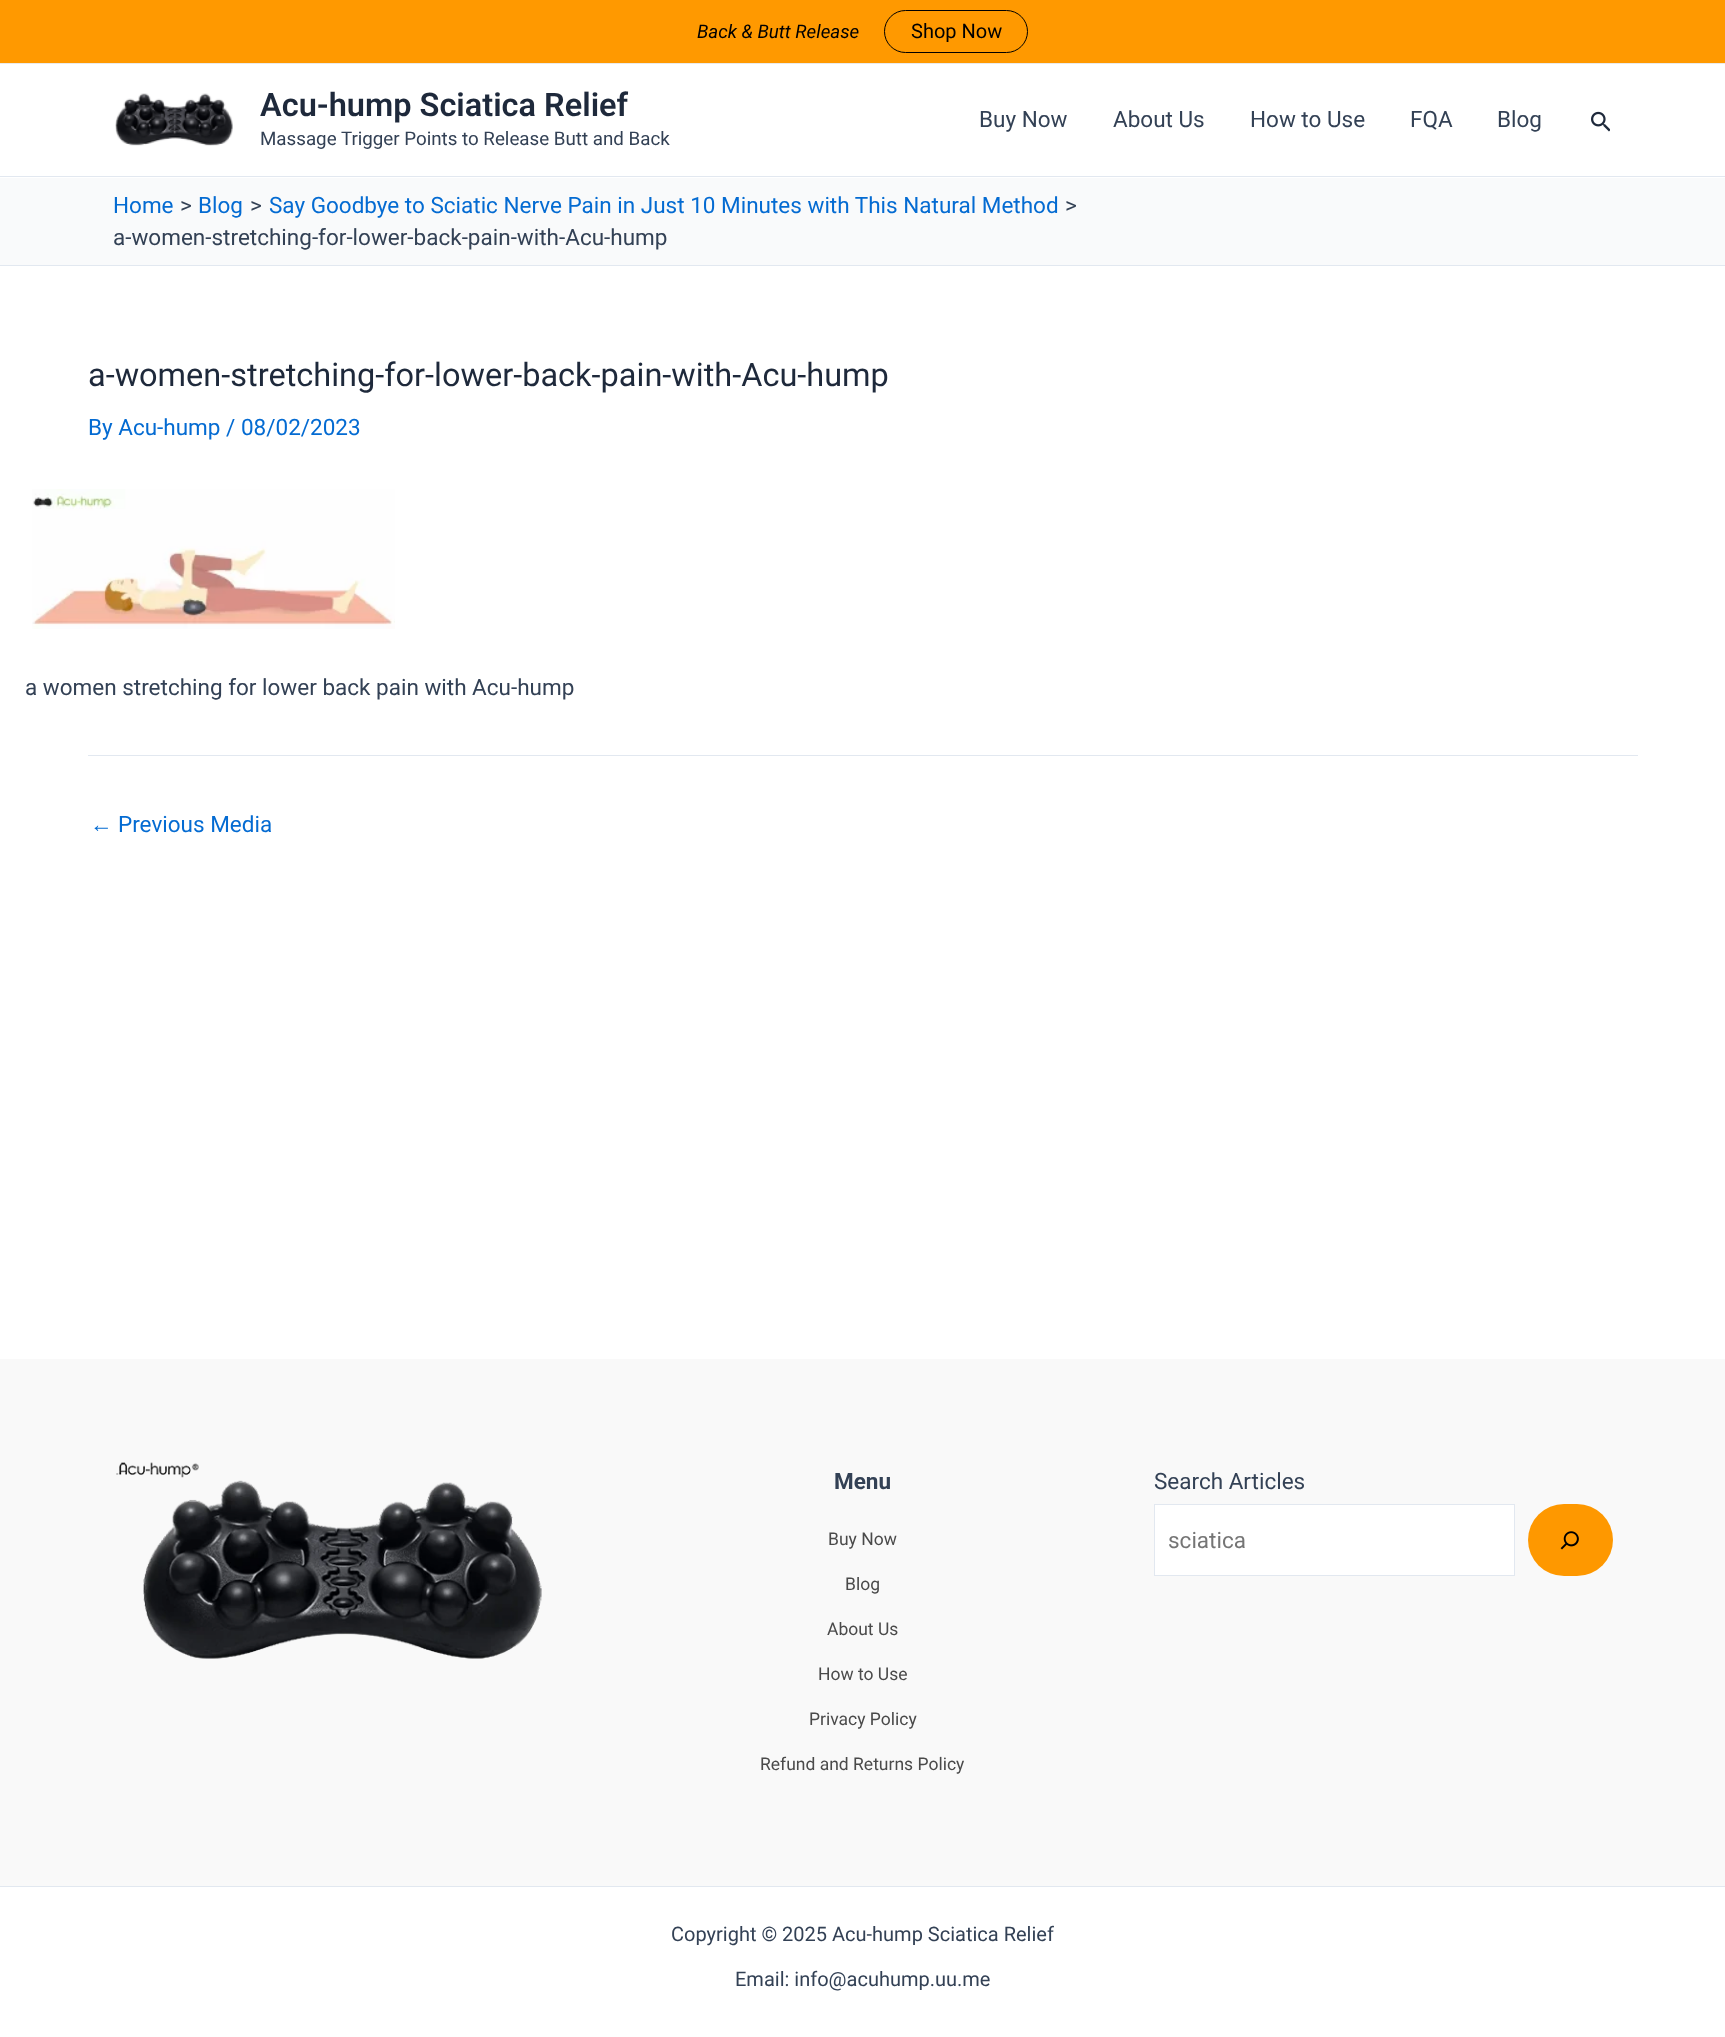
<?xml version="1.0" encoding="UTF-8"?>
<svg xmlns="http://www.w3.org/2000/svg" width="1725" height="2037">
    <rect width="100%" height="100%" fill="#FFFFFF"/>
    <rect x="0" y="0" width="1725" height="63" fill="#FF9900"/>
    <rect x="0" y="63" width="1725" height="1" fill="#EAEAEA"/>
    <text x="697" y="38" font-family="Roboto" font-size="18.75" font-style="italic" fill="#000000">Back &amp; Butt Release</text>
    <rect x="884.5" y="10.5" width="143" height="42" rx="21" fill="none" stroke="#000000"/>
    <text x="911" y="38" font-family="Roboto" font-size="20" fill="#000000">Shop Now</text>
    <rect x="0" y="176" width="1725" height="1" fill="#E2E8F0"/>
    <image x="115" y="93" width="118" height="53" href="img_01.png"/>
    <text x="260" y="116" font-family="Roboto" font-size="32.5" font-weight="600" fill="#1E293B">Acu-hump Sciatica Relief</text>
    <text x="260" y="145" font-family="Roboto" font-size="18.75" fill="#334155">Massage Trigger Points to Release Butt and Back</text>
    <text x="979" y="127" font-family="Roboto" font-size="22.5" fill="#334155">Buy Now</text>
    <text x="1113" y="127" font-family="Roboto" font-size="22.5" fill="#334155">About Us</text>
    <text x="1250" y="127" font-family="Roboto" font-size="22.5" fill="#334155">How to Use</text>
    <text x="1410" y="127" font-family="Roboto" font-size="22.5" fill="#334155">FQA</text>
    <text x="1497" y="127" font-family="Roboto" font-size="22.5" fill="#334155">Blog</text>
    <image x="1591" y="111" width="19" height="21" href="img_02.png"/>
    <rect x="0" y="178" width="1725" height="87" fill="#F9FAFB"/>
    <rect x="0" y="265" width="1725" height="1" fill="#E2E8F0"/>
    <text x="113" y="213" font-family="Roboto" font-size="22.5" fill="#046BD2">Home</text>
    <text x="180" y="213" font-family="Roboto" font-size="22.5" fill="#334155">&gt;</text>
    <text x="198" y="213" font-family="Roboto" font-size="22.5" fill="#046BD2">Blog</text>
    <text x="250" y="213" font-family="Roboto" font-size="22.5" fill="#334155">&gt;</text>
    <text x="269" y="213" font-family="Roboto" font-size="22.5" fill="#046BD2">Say Goodbye to Sciatic Nerve Pain in Just 10 Minutes with This Natural Method</text>
    <text x="1065" y="213" font-family="Roboto" font-size="22.5" fill="#334155">&gt;</text>
    <text x="113" y="245" font-family="Roboto" font-size="22.5" fill="#334155">a-women-stretching-for-lower-back-pain-with-Acu-hump</text>
    <text x="88" y="386" font-family="Roboto" font-size="32.5" fill="#1E293B">a-women-stretching-for-lower-back-pain-with-Acu-hump</text>
    <text x="88" y="435" font-family="Roboto" font-size="22.5" fill="#046BD2">By Acu-hump / 08/02/2023</text>
    <image x="32" y="489" width="363" height="140" href="img_03.png"/>
    <text x="25" y="695" font-family="Roboto" font-size="22.5" fill="#334155">a women stretching for lower back pain with Acu-hump</text>
    <rect x="88" y="755" width="1550" height="1" fill="#E2E8F0"/>
    <text x="90" y="832" font-family="Liberation Sans" font-size="22.5" fill="#046BD2">←</text>
    <text x="118" y="832" font-family="Roboto" font-size="22.5" fill="#046BD2">Previous Media</text>
    <rect x="0" y="1359" width="1725" height="527" fill="#F9F9F9"/>
    <image x="116" y="1462" width="426" height="197" href="img_04.png"/>
    <text x="834" y="1489" font-family="Roboto" font-size="22.5" font-weight="700" fill="#334155">Menu</text>
    <text x="828" y="1545" font-family="Roboto" font-size="17.5" fill="#4A4A4A">Buy Now</text>
    <text x="845" y="1590" font-family="Roboto" font-size="17.5" fill="#4A4A4A">Blog</text>
    <text x="827" y="1635" font-family="Roboto" font-size="17.5" fill="#4A4A4A">About Us</text>
    <text x="818" y="1680" font-family="Roboto" font-size="17.5" fill="#4A4A4A">How to Use</text>
    <text x="809" y="1725" font-family="Roboto" font-size="17.5" fill="#4A4A4A">Privacy Policy</text>
    <text x="760" y="1770" font-family="Roboto" font-size="17.5" fill="#4A4A4A">Refund and Returns Policy</text>
    <text x="1154" y="1489" font-family="Roboto" font-size="22.5" fill="#334155">Search Articles</text>
    <rect x="1154.5" y="1504.5" width="360" height="71" fill="#FFFFFF" stroke="#E2E8F0"/>
    <text x="1168" y="1548" font-family="Roboto" font-size="22.5" fill="#757575">sciatica</text>
    <rect x="1528" y="1504" width="85" height="72" rx="36" fill="#FE9800"/>
    <image x="1560" y="1531" width="19" height="19" href="img_05.png"/>
    <rect x="0" y="1886" width="1725" height="1" fill="#E2E8F0"/>
    <text x="671" y="1941" font-family="Roboto" font-size="20" fill="#334155">Copyright © 2025 Acu-hump Sciatica Relief</text>
    <text x="735" y="1986" font-family="Roboto" font-size="20" fill="#334155">Email: info@acuhump.uu.me</text>
</svg>
